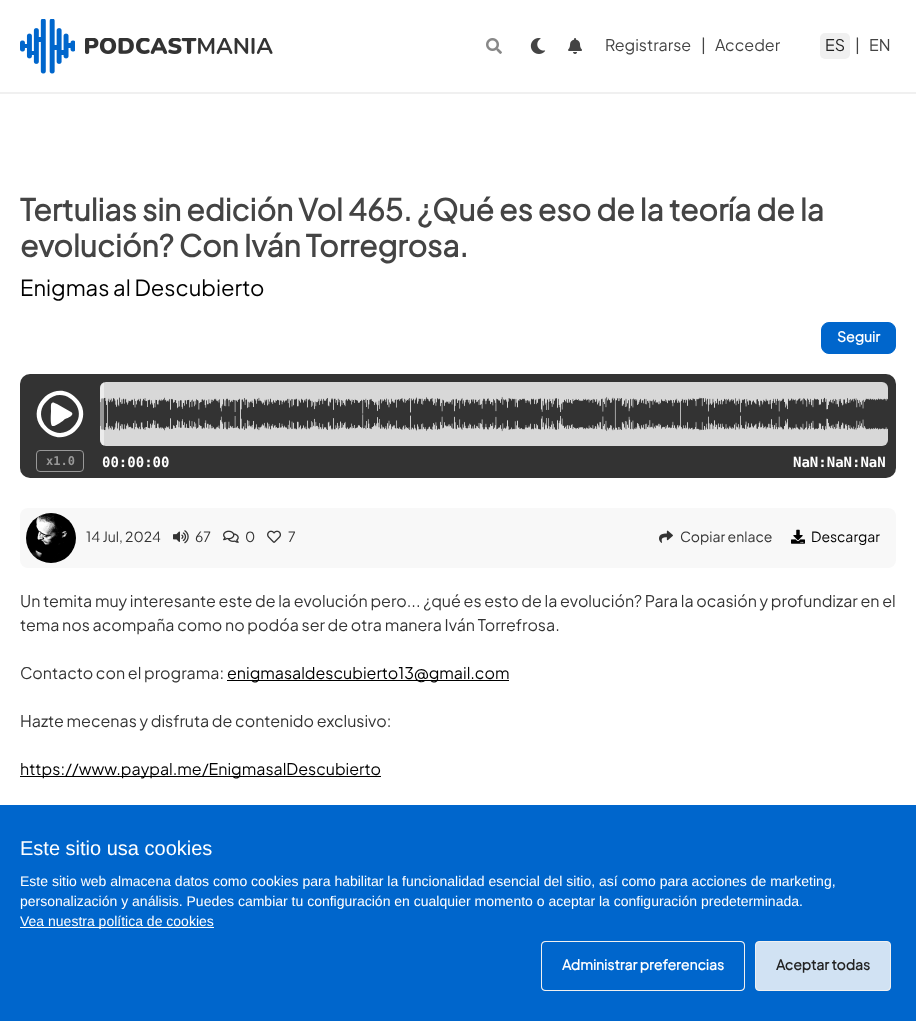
<?xml version="1.0" encoding="UTF-8"?>
<svg xmlns="http://www.w3.org/2000/svg" width="916" height="1021">
    <defs>
        <clipPath id="clip1"><rect x="100" y="382" width="788" height="64" rx="6"/></clipPath>
    </defs>
    <rect width="100%" height="100%" fill="#FFFFFF"/>
    <rect x="0" y="92" width="916" height="2" fill="#F0F0F0"/>
    <image x="20" y="19" width="55" height="55" href="img_01.png"/>
    <image x="85" y="38" width="188" height="16" href="img_02.png"/>
    <image x="486" y="38" width="16" height="16" href="img_03.png"/>
    <image x="530" y="38" width="16" height="16" href="img_04.png"/>
    <image x="568" y="38" width="14" height="16" href="img_05.png"/>
    <text x="605" y="51" font-family="Plus Jakarta Sans" font-size="16" fill="#444444">Registrarse</text>
    <text x="701" y="51" font-family="Plus Jakarta Sans" font-size="16" fill="#444444">|</text>
    <text x="715" y="51" font-family="Plus Jakarta Sans" font-size="16" fill="#444444">Acceder</text>
    <rect x="820" y="33" width="30" height="26" rx="5" fill="#F0F0F0"/>
    <text x="825" y="51" font-family="Plus Jakarta Sans" font-size="16" fill="#222222">ES</text>
    <text x="855" y="51" font-family="Plus Jakarta Sans" font-size="16" fill="#444444">|</text>
    <text x="869" y="51" font-family="Plus Jakarta Sans" font-size="16" fill="#444444">EN</text>
    <text font-family="Plus Jakarta Sans" font-size="30" font-weight="700" fill="#444444">
        <tspan x="20" y="221">Tertulias sin edición Vol 465. ¿Qué es eso de la teoría de la</tspan>
        <tspan x="20" y="257">evolución? Con Iván Torregrosa.</tspan>
    </text>
    <text x="20" y="296" font-family="Plus Jakarta Sans" font-size="22" fill="#000000">Enigmas al Descubierto</text>
    <rect x="821.5" y="322.5" width="74" height="31" rx="7.5" fill="#0066CC" stroke="#0066CC"/>
    <text x="837" y="342" font-family="Plus Jakarta Sans" font-size="14" font-weight="700" fill="#FFFFFF">Seguir</text>
    <rect x="20" y="374" width="876" height="104" rx="10" fill="#333333"/>
    <path d="M 71 412 C 76 415 66 419 65 419 C 63 421 55 427 52 426 C 50 424 51 413 51 411 C 51 404 50 400 57 404 Z M 76 398 C 98 419 65 452 44 430 C 22 409 55 376 76 398 Z M 47 401 C 29 418 56 445 73 427 C 91 410 64 383 47 401 Z" fill="#FFFFFF"/>
    <image x="100" y="382" width="788" height="64" href="img_06.png"/>
    <g clip-path="url(#clip1)">
        <rect x="100" y="382" width="4" height="64" fill="#FFFFFF" fill-opacity="0.5"/>
    </g>
    <rect x="36.5" y="450.5" width="47" height="21" rx="3.5" fill="none" stroke="#999999"/>
    <text x="46" y="465" font-family="DejaVu Sans Mono" font-size="12" font-weight="700" fill="#999999">x1.0</text>
    <text x="102" y="467" font-family="DejaVu Sans Mono" font-size="14" font-weight="700" fill="#FFFFFF">00:00:00</text>
    <text x="793" y="467" font-family="DejaVu Sans Mono" font-size="14" font-weight="700" fill="#FFFFFF">NaN:NaN:NaN</text>
    <rect x="20" y="508" width="876" height="60" rx="8" fill="#F8F8F8"/>
    <image x="26" y="513" width="50" height="50" href="img_07.png"/>
    <text x="86" y="542" font-family="Plus Jakarta Sans" font-size="14" fill="#333333">14 Jul, 2024</text>
    <image x="173" y="530" width="16" height="14" href="img_08.png"/>
    <text x="195" y="542" font-family="Plus Jakarta Sans" font-size="14" fill="#333333">67</text>
    <image x="223" y="530" width="16" height="13" href="img_09.png"/>
    <text x="245" y="542" font-family="Plus Jakarta Sans" font-size="14" fill="#333333">0</text>
    <image x="267" y="530" width="14" height="13" href="img_10.png"/>
    <text x="288" y="542" font-family="Plus Jakarta Sans" font-size="14" fill="#333333">7</text>
    <image x="659" y="530" width="14" height="13" href="img_11.png"/>
    <text x="680" y="542" font-family="Plus Jakarta Sans" font-size="14" fill="#333333">Copiar enlace</text>
    <image x="791" y="529" width="14" height="15" href="img_12.png"/>
    <text x="811" y="542" font-family="Plus Jakarta Sans" font-size="14" fill="#000000">Descargar</text>
    <text font-family="Plus Jakarta Sans" font-size="16" fill="#333333">
        <tspan x="20" y="607">Un temita muy interesante este de la evolución pero... ¿qué es esto de la evolución? Para la ocasión y profundizar en el</tspan>
        <tspan x="20" y="631">tema nos acompaña como no podóa ser de otra manera Iván Torrefrosa.</tspan>
    </text>
    <text x="20" y="679" font-family="Plus Jakarta Sans" font-size="16" fill="#333333">Contacto con el programa:</text>
    <rect x="227" y="680" width="282" height="1" fill="#000000"/>
    <text x="227" y="679" font-family="Plus Jakarta Sans" font-size="16" fill="#000000">enigmasaldescubierto13@gmail.com</text>
    <text x="20" y="727" font-family="Plus Jakarta Sans" font-size="16" fill="#333333">Hazte mecenas y disfruta de contenido exclusivo:</text>
    <rect x="20" y="776" width="361" height="1" fill="#000000"/>
    <text x="20" y="775" font-family="Plus Jakarta Sans" font-size="16" fill="#000000">https://www.paypal.me/EnigmasalDescubierto</text>
    <rect x="0" y="805" width="916" height="216" fill="#0066CC"/>
    <text x="20" y="855" font-family="Liberation Sans" font-size="20" fill="#FFFFFF">Este sitio usa cookies</text>
    <text font-family="Liberation Sans" font-size="14" fill="#FFFFFF">
        <tspan x="20" y="886">Este sitio web almacena datos como cookies para habilitar la funcionalidad esencial del sitio, así como para acciones de marketing,</tspan>
        <tspan x="20" y="906">personalización y análisis. Puedes cambiar tu configuración en cualquier momento o aceptar la configuración predeterminada.</tspan>
    </text>
    <rect x="20" y="927" width="194" height="1" fill="#FFFFFF"/>
    <text x="20" y="926" font-family="Liberation Sans" font-size="14" fill="#FFFFFF">Vea nuestra política de cookies</text>
    <rect x="541.5" y="941.5" width="203" height="49" rx="3.5" fill="#F0F0F0" stroke="#F0F0F0"/>
    <rect x="542" y="942" width="202" height="48" rx="4" fill="#0066CC"/>
    <text x="562" y="970" font-family="Plus Jakarta Sans" font-size="14" font-weight="700" fill="#FFFFFF">Administrar preferencias</text>
    <rect x="755.5" y="941.5" width="135" height="49" rx="3.5" fill="#F0F0F0" stroke="#F0F0F0"/>
    <rect x="756" y="942" width="134" height="48" rx="4" fill="#D1E2F3"/>
    <text x="776" y="970" font-family="Plus Jakarta Sans" font-size="14" font-weight="700" fill="#222222">Aceptar todas</text>
</svg>
